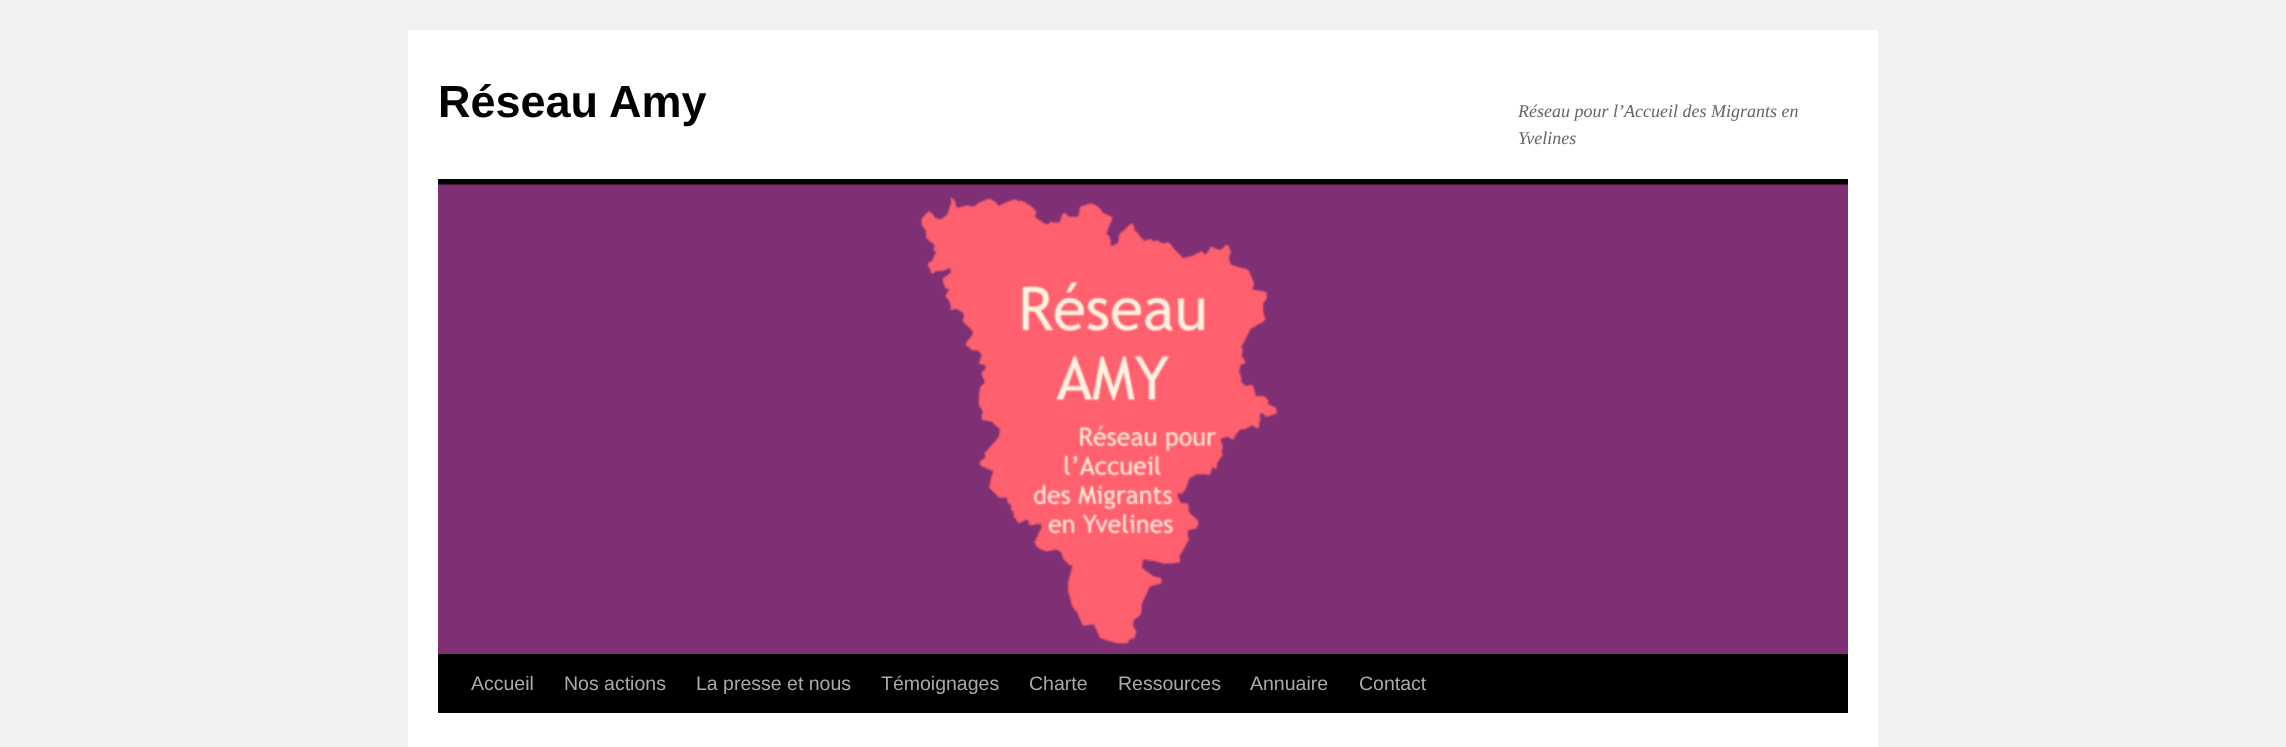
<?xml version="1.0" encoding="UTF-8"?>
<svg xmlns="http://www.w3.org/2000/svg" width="2286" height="747">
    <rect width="100%" height="100%" fill="#F1F1F1"/>
    <rect x="408" y="30" width="1470" height="717" fill="#FFFFFF"/>
    <text x="438" y="117" font-family="Liberation Sans" font-size="45" font-weight="700" fill="#000000">Réseau Amy</text>
    <text font-family="Liberation Serif" font-size="18" font-style="italic" fill="#666666">
        <tspan x="1518" y="117">Réseau pour l’Accueil des Migrants en</tspan>
        <tspan x="1518" y="144">Yvelines</tspan>
    </text>
    <rect x="438" y="179" width="1410" height="6" fill="#000000"/>
    <rect x="438" y="654" width="1410" height="59" fill="#000000"/>
    <image x="438" y="184" width="1410" height="470" href="img_01.png"/>
    <text x="471" y="690" font-family="Liberation Sans" font-size="19.5" fill="#AAAAAA">Accueil</text>
    <text x="564" y="690" font-family="Liberation Sans" font-size="19.5" fill="#AAAAAA">Nos actions</text>
    <text x="696" y="690" font-family="Liberation Sans" font-size="19.5" fill="#AAAAAA">La presse et nous</text>
    <text x="881" y="690" font-family="Liberation Sans" font-size="19.5" fill="#AAAAAA">Témoignages</text>
    <text x="1029" y="690" font-family="Liberation Sans" font-size="19.5" fill="#AAAAAA">Charte</text>
    <text x="1118" y="690" font-family="Liberation Sans" font-size="19.5" fill="#AAAAAA">Ressources</text>
    <text x="1250" y="690" font-family="Liberation Sans" font-size="19.5" fill="#AAAAAA">Annuaire</text>
    <text x="1359" y="690" font-family="Liberation Sans" font-size="19.5" fill="#AAAAAA">Contact</text>
</svg>
